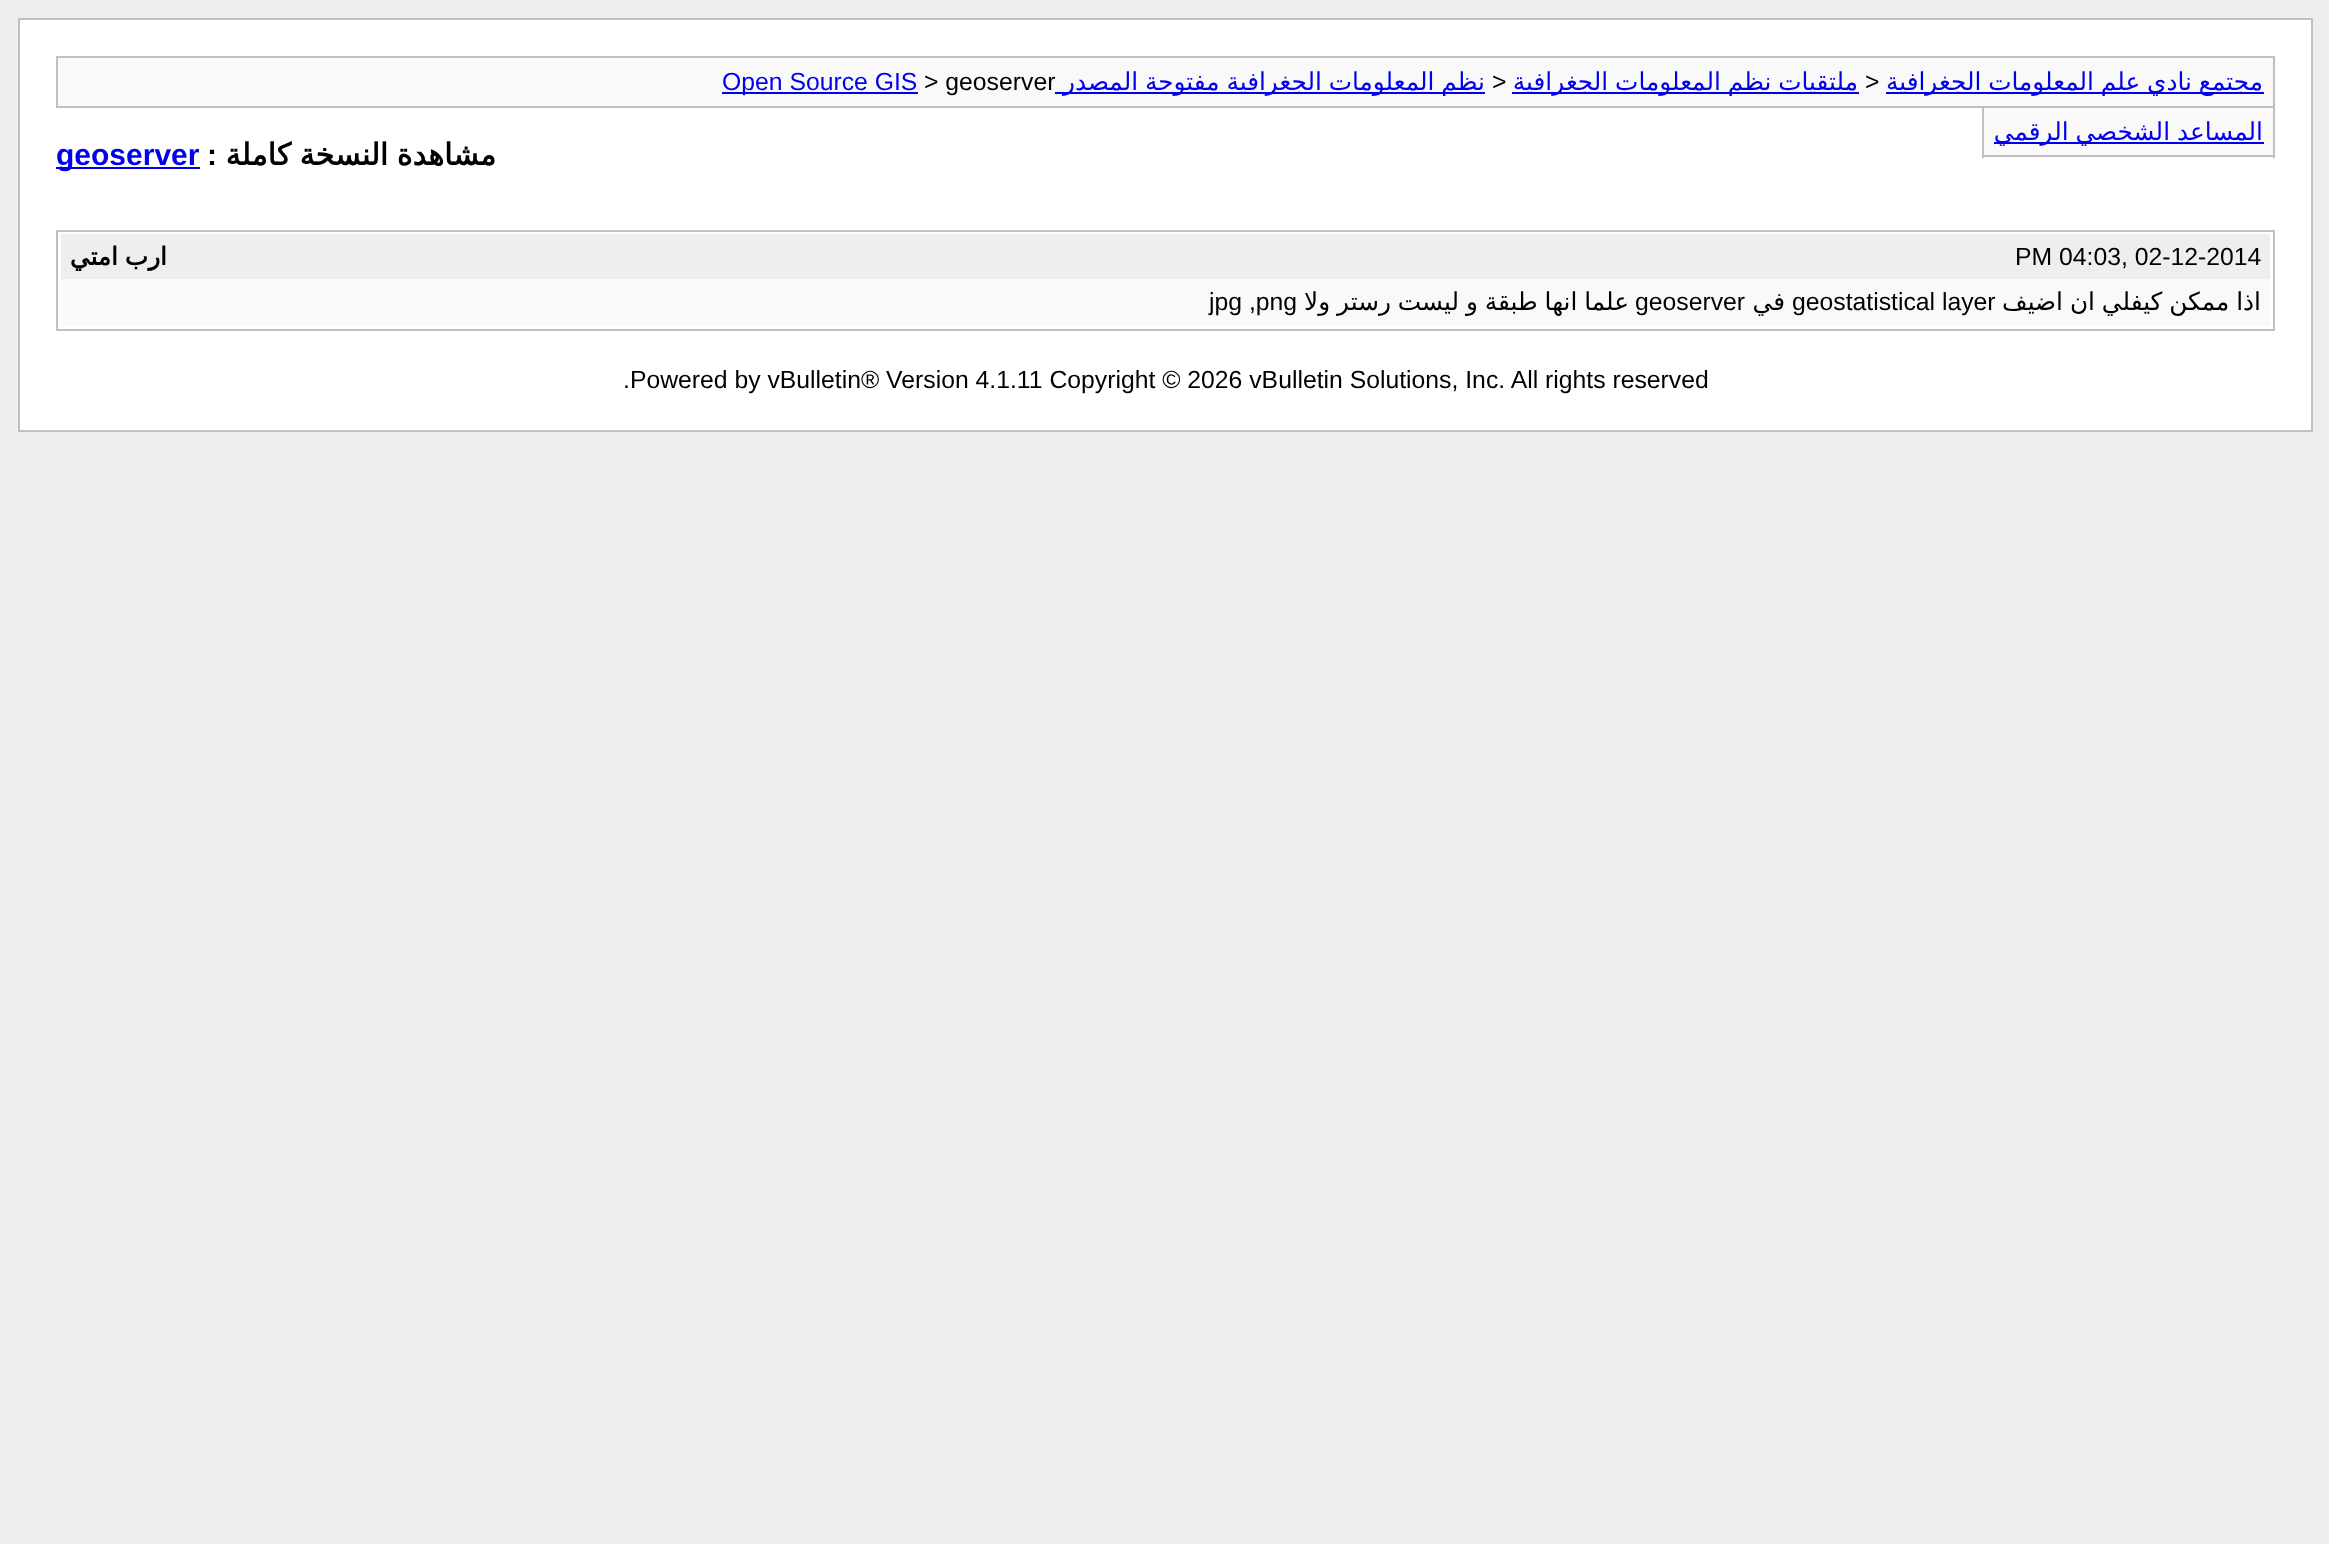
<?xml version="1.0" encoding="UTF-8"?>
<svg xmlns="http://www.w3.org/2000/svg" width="2329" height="1544">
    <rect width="100%" height="100%" fill="#EEEEEE"/>
    <rect x="19" y="19" width="2293" height="412" fill="#FFFFFF" stroke="#C0C0C0" stroke-width="2"/>
    <rect x="57" y="57" width="2217" height="50" fill="#F9F9F9" stroke="#C0C0C0" stroke-width="2"/>
    <rect x="1886" y="92" width="378" height="2" fill="#0000EE"/>
    <text x="2263" y="90" word-spacing="-1" font-family="DejaVu Sans" font-size="24.75" direction="rtl" fill="#0000EE">مجتمع نادي علم المعلومات الجغرافية</text>
    <text x="1865" y="90" font-family="Liberation Sans" font-size="24.75" fill="#000000">&gt;</text>
    <rect x="1512" y="92" width="347" height="2" fill="#0000EE"/>
    <text x="1858" y="90" word-spacing="-1" font-family="DejaVu Sans" font-size="24.75" direction="rtl" fill="#0000EE">ملتقيات نظم المعلومات الجغرافية</text>
    <text x="1492" y="90" font-family="Liberation Sans" font-size="24.75" fill="#000000">&gt;</text>
    <rect x="1055" y="92" width="430" height="2" fill="#0000EE"/>
    <text x="1485" y="90" word-spacing="-1" font-family="DejaVu Sans" font-size="24.75" direction="rtl" fill="#0000EE">نظم المعلومات الجغرافية مفتوحة المصدر</text>
    <text x="924" y="90" font-family="Liberation Sans" font-size="24.75" fill="#000000">&gt; geoserver</text>
    <rect x="722" y="92" width="196" height="2" fill="#0000EE"/>
    <text x="722" y="90" font-family="Liberation Sans" font-size="24.75" fill="#0000EE">Open Source GIS</text>
    <rect x="1984" y="108" width="289" height="50" fill="#F9F9F9"/>
    <rect x="2273" y="108" width="2" height="50" fill="#C0C0C0"/>
    <rect x="1982" y="155" width="293" height="2" fill="#C0C0C0"/>
    <rect x="1982" y="108" width="2" height="50" fill="#C0C0C0"/>
    <rect x="1994" y="142" width="270" height="2" fill="#0000EE"/>
    <text x="2263" y="140" word-spacing="-1" font-family="DejaVu Sans" font-size="24.75" direction="rtl" fill="#0000EE">المساعد الشخصي الرقمي</text>
    <text x="496" y="165" word-spacing="-1" font-family="DejaVu Sans" font-size="30" font-weight="700" direction="rtl" fill="#000000">مشاهدة النسخة كاملة</text>
    <text x="217" y="165" font-family="Liberation Sans" font-size="30" font-weight="700" direction="rtl" fill="#000000">:</text>
    <rect x="56" y="167" width="144" height="2" fill="#0000EE"/>
    <text x="56" y="165" font-family="Liberation Sans" font-size="30" font-weight="700" fill="#0000EE">geoserver</text>
    <rect x="57" y="231" width="2217" height="99" fill="none" stroke="#C0C0C0" stroke-width="2"/>
    <rect x="61" y="234" width="2209" height="45" fill="#EEEEEE"/>
    <text x="2015" y="265" font-family="Liberation Sans" font-size="24.75" fill="#000000">PM 04:03, 02-12-2014</text>
    <text x="167" y="265" word-spacing="-1" font-family="DejaVu Sans" font-size="24.75" font-weight="700" direction="rtl" fill="#000000">ارب امتي</text>
    <rect x="61" y="279" width="2209" height="47" fill="#F9F9F9"/>
    <text x="2261" y="310" word-spacing="-1" font-family="DejaVu Sans" font-size="24.75" direction="rtl" fill="#000000">اذا ممكن كيفلي ان</text>
    <text x="2063" y="310" font-family="DejaVu Sans" font-size="24.75" direction="rtl" fill="#000000">اضيف</text>
    <text x="1792" y="310" font-family="Liberation Sans" font-size="24.75" fill="#000000">geostatistical layer</text>
    <text x="1785" y="310" font-family="DejaVu Sans" font-size="24.75" direction="rtl" fill="#000000">في</text>
    <text x="1635" y="310" font-family="Liberation Sans" font-size="24.75" fill="#000000">geoserver</text>
    <text x="1629" y="310" word-spacing="-1" font-family="DejaVu Sans" font-size="24.75" direction="rtl" fill="#000000">علما انها طبقة و ليست رستر ولا</text>
    <text x="1209" y="310" font-family="Liberation Sans" font-size="24.75" fill="#000000">jpg ,png</text>
    <text x="623" y="388" font-family="Liberation Sans" font-size="24.75" fill="#000000">.Powered by vBulletin® Version 4.1.11 Copyright © 2026 vBulletin Solutions, Inc. All rights reserved</text>
</svg>
